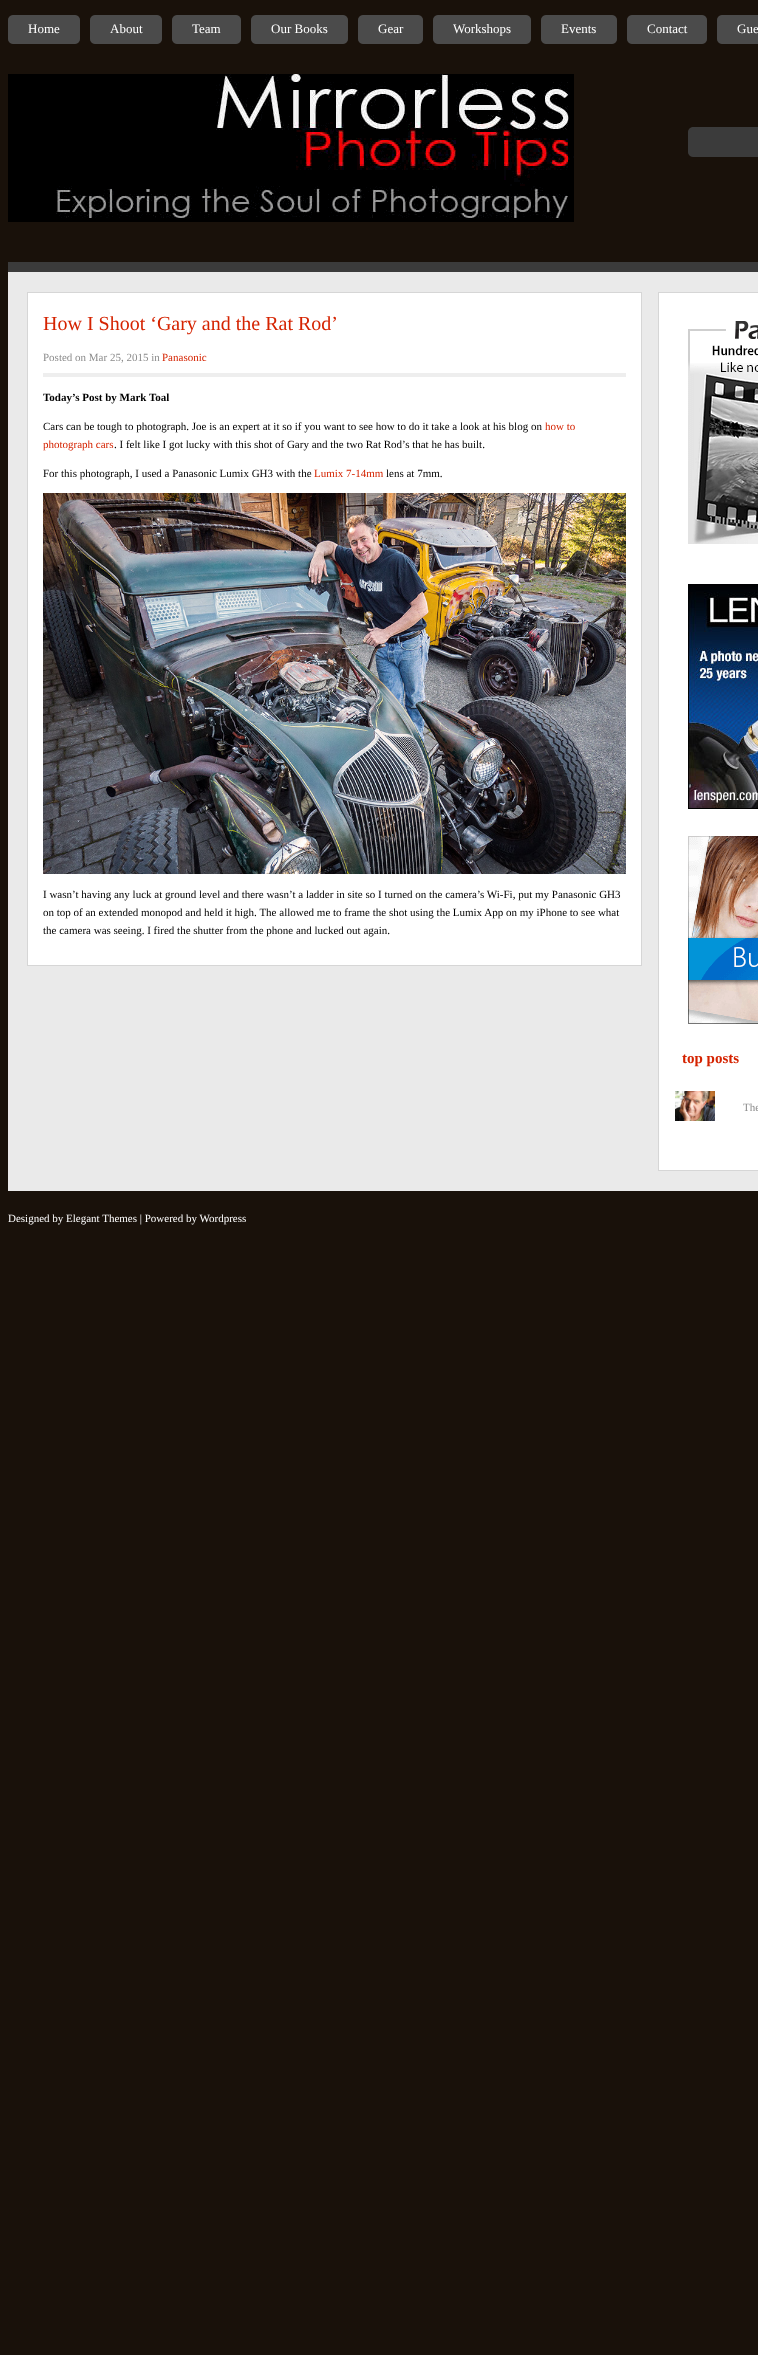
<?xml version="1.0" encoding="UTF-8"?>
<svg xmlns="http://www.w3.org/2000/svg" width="758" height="2355">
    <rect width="100%" height="100%" fill="#19110A"/>
    <rect x="13" y="15" width="62" height="29" fill="#4B4B4B"/>
    <image x="75" y="15" width="5" height="29" href="img_01.png"/>
    <image x="8" y="15" width="5" height="29" href="img_02.png"/>
    <text x="28" y="33" font-family="Liberation Serif" font-size="13" fill="#FFFFFF">Home</text>
    <rect x="95" y="15" width="62" height="29" fill="#4B4B4B"/>
    <image x="157" y="15" width="5" height="29" href="img_01.png"/>
    <image x="90" y="15" width="5" height="29" href="img_02.png"/>
    <text x="110" y="33" font-family="Liberation Serif" font-size="13" fill="#FFFFFF">About</text>
    <rect x="177" y="15" width="59" height="29" fill="#4B4B4B"/>
    <image x="236" y="15" width="5" height="29" href="img_01.png"/>
    <image x="172" y="15" width="5" height="29" href="img_02.png"/>
    <text x="192" y="33" font-family="Liberation Serif" font-size="13" fill="#FFFFFF">Team</text>
    <rect x="256" y="15" width="87" height="29" fill="#4B4B4B"/>
    <image x="343" y="15" width="5" height="29" href="img_01.png"/>
    <image x="251" y="15" width="5" height="29" href="img_02.png"/>
    <text x="271" y="33" font-family="Liberation Serif" font-size="13" fill="#FFFFFF">Our Books</text>
    <rect x="363" y="15" width="55" height="29" fill="#4B4B4B"/>
    <image x="418" y="15" width="5" height="29" href="img_01.png"/>
    <image x="358" y="15" width="5" height="29" href="img_02.png"/>
    <text x="378" y="33" font-family="Liberation Serif" font-size="13" fill="#FFFFFF">Gear</text>
    <rect x="438" y="15" width="88" height="29" fill="#4B4B4B"/>
    <image x="526" y="15" width="5" height="29" href="img_01.png"/>
    <image x="433" y="15" width="5" height="29" href="img_02.png"/>
    <text x="453" y="33" font-family="Liberation Serif" font-size="13" fill="#FFFFFF">Workshops</text>
    <rect x="546" y="15" width="66" height="29" fill="#4B4B4B"/>
    <image x="612" y="15" width="5" height="29" href="img_01.png"/>
    <image x="541" y="15" width="5" height="29" href="img_02.png"/>
    <text x="561" y="33" font-family="Liberation Serif" font-size="13" fill="#FFFFFF">Events</text>
    <rect x="632" y="15" width="70" height="29" fill="#4B4B4B"/>
    <image x="702" y="15" width="5" height="29" href="img_01.png"/>
    <image x="627" y="15" width="5" height="29" href="img_02.png"/>
    <text x="647" y="33" font-family="Liberation Serif" font-size="13" fill="#FFFFFF">Contact</text>
    <rect x="722" y="15" width="36" height="29" fill="#4B4B4B"/>
    <image x="717" y="15" width="5" height="29" href="img_02.png"/>
    <text x="737" y="33" font-family="Liberation Serif" font-size="13" fill="#FFFFFF">Gue</text>
    <image x="8" y="74" width="566" height="148" href="img_03.png"/>
    <image x="688" y="127" width="70" height="30" href="img_04.png"/>
    <rect x="8" y="262" width="750" height="10" fill="#3B3B3B"/>
    <rect x="8" y="272" width="750" height="919" fill="#EAEAEA"/>
    <rect x="27.5" y="292.5" width="614" height="673" fill="#FFFFFF" stroke="#D6D6D6"/>
    <text x="43" y="330" font-family="Liberation Serif" font-size="20" fill="#D52300">How I Shoot ‘Gary and the Rat Rod’</text>
    <rect x="43" y="373" width="583" height="4" fill="#EEEEEE"/>
    <text x="43" y="361" font-family="Liberation Serif" font-size="11" fill="#8C8C8C">Posted on Mar 25, 2015 in</text>
    <text x="162" y="361" font-family="Liberation Serif" font-size="11" fill="#D52300">Panasonic</text>
    <text x="43" y="401" font-family="Liberation Serif" font-size="11" font-weight="700" fill="#000000">Today’s Post by Mark Toal</text>
    <text x="43" y="430" font-family="Liberation Serif" font-size="11" fill="#000000">Cars can be tough to photograph. Joe is an expert at it so if you want to see how to do it take a look at his blog on</text>
    <text x="545" y="430" font-family="Liberation Serif" font-size="11" fill="#D52300">how to</text>
    <text x="43" y="448" font-family="Liberation Serif" font-size="11" fill="#D52300">photograph cars</text>
    <text x="114" y="448" font-family="Liberation Serif" font-size="11" fill="#000000">. I felt like I got lucky with this shot of Gary and the two Rat Rod’s that he has built.</text>
    <text x="43" y="477" font-family="Liberation Serif" font-size="11" fill="#000000">For this photograph, I used a Panasonic Lumix GH3 with the</text>
    <text x="314" y="477" font-family="Liberation Serif" font-size="11" fill="#D52300">Lumix 7-14mm</text>
    <text x="386" y="477" font-family="Liberation Serif" font-size="11" fill="#000000">lens at 7mm.</text>
    <image x="43" y="493" width="583" height="381" href="img_05.png"/>
    <text font-family="Liberation Serif" font-size="11" fill="#000000">
        <tspan x="43" y="898">I wasn’t having any luck at ground level and there wasn’t a ladder in site so I turned on the camera’s Wi-Fi, put my Panasonic GH3</tspan>
        <tspan x="43" y="916">on top of an extended monopod and held it high. The allowed me to frame the shot using the Lumix App on my iPhone to see what</tspan>
        <tspan x="43" y="934">the camera was seeing. I fired the shutter from the phone and lucked out again.</tspan>
    </text>
    <rect x="658.5" y="292.5" width="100" height="878" fill="#FFFFFF" stroke="#D6D6D6"/>
    <image x="688" y="321" width="70" height="223" href="img_06.png"/>
    <image x="688" y="584" width="70" height="225" href="img_07.png"/>
    <image x="688" y="836" width="70" height="188" href="img_08.png"/>
    <text x="682" y="1063" font-family="Liberation Serif" font-size="15" font-weight="700" fill="#D52300">top posts</text>
    <image x="675" y="1091" width="40" height="30" href="img_09.png"/>
    <text x="743" y="1111" font-family="Liberation Serif" font-size="11" fill="#8C8C8C">The</text>
    <text x="8" y="1222" font-family="Liberation Serif" font-size="11" fill="#FFFFFF">Designed by Elegant Themes | Powered by Wordpress</text>
</svg>
